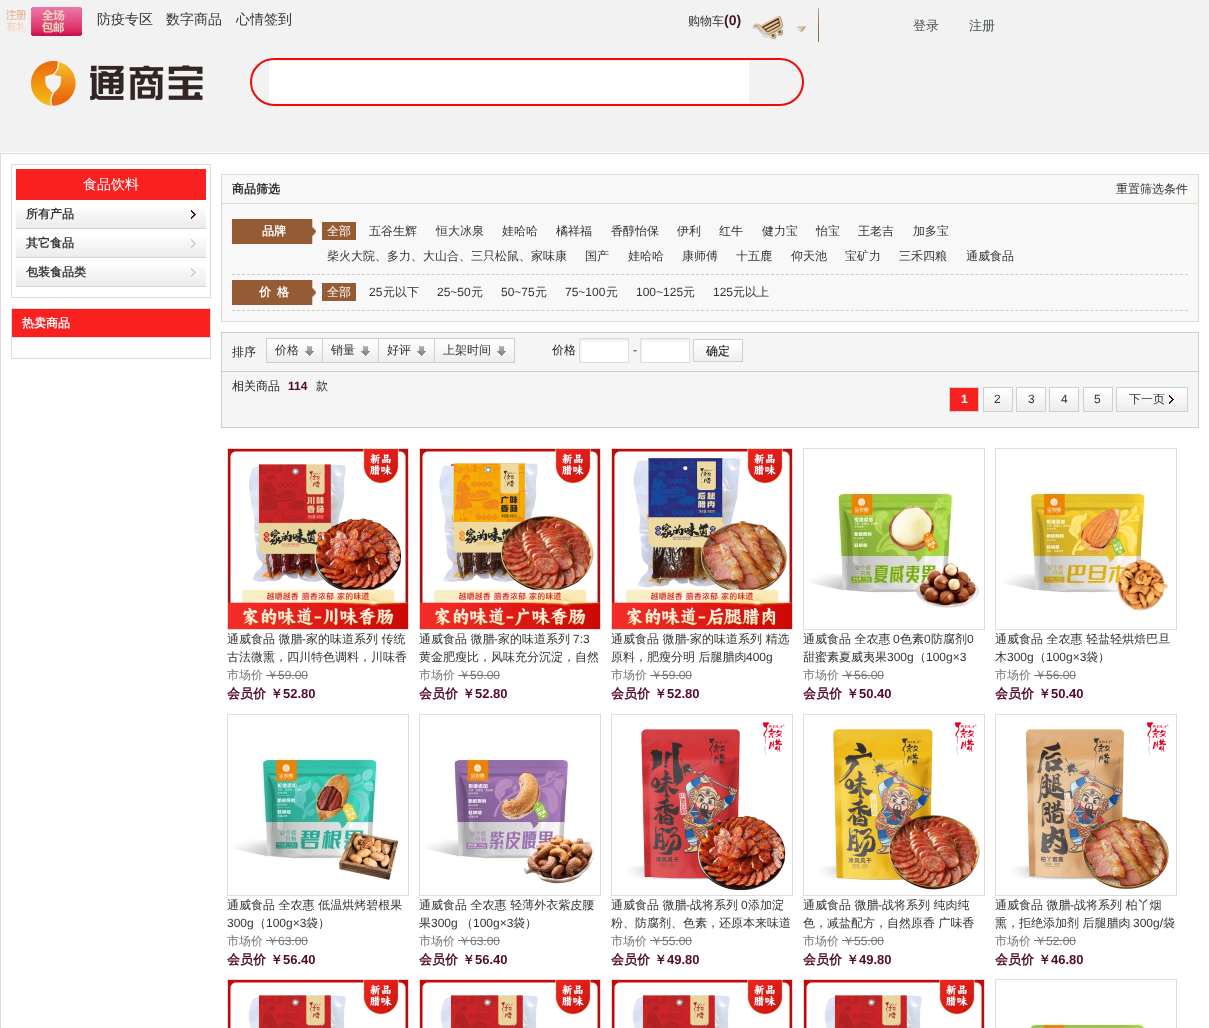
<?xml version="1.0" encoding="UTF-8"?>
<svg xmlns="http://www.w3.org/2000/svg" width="1209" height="1028">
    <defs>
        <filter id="blur1" x="-50%" y="-200%" width="200%" height="500%"><feGaussianBlur stdDeviation="0.5"/></filter>
    </defs>
    <rect width="100%" height="100%" fill="#FFFFFF"/>
    <rect x="0" y="0" width="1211" height="152" fill="#000000" fill-opacity="0.6" filter="url(#blur1)"/>
    <rect x="0" y="0" width="1209" height="152" fill="#F2F2F2"/>
    <image x="6" y="7" width="76" height="29" href="img_01.png"/>
    <text x="97" y="24" font-family="WenQuanYi Zen Hei" font-size="14" font-weight="500" fill="#333333">防疫专区</text>
    <text x="166" y="24" font-family="WenQuanYi Zen Hei" font-size="14" font-weight="500" fill="#333333">数字商品</text>
    <text x="236" y="24" font-family="WenQuanYi Zen Hei" font-size="14" font-weight="500" fill="#333333">心情签到</text>
    <text x="688" y="25" font-family="WenQuanYi Zen Hei" font-size="12" font-weight="500" fill="#333333">购物车</text>
    <text x="724" y="25" font-family="Liberation Sans" font-size="14" font-weight="700" fill="#44122B">(0)</text>
    <image x="752" y="15" width="54" height="26" href="img_02.png"/>
    <image x="818" y="8" width="1" height="34" href="img_03.png"/>
    <text x="913" y="30" font-family="WenQuanYi Zen Hei" font-size="13" font-weight="500" fill="#47514A">登录</text>
    <text x="969" y="30" font-family="WenQuanYi Zen Hei" font-size="13" font-weight="500" fill="#47514A">注册</text>
    <image x="31" y="61" width="172" height="45" href="img_04.png"/>
    <rect x="251" y="59" width="552" height="46" rx="23" fill="none" stroke="#EF0A0A" stroke-width="2"/>
    <rect x="269" y="61" width="480" height="42" fill="#FFFFFF"/>
    <rect x="0.5" y="153.5" width="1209" height="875" fill="none" stroke="#DDDDDD"/>
    <rect x="11.5" y="164.5" width="199" height="133" fill="none" stroke="#DDDDDD"/>
    <rect x="16" y="169" width="190" height="31" fill="#F92020"/>
    <text x="83" y="189" font-family="WenQuanYi Zen Hei" font-size="14" font-weight="500" fill="#FFFFFF">食品饮料</text>
    <image x="16" y="209" width="190" height="19" href="img_05.png"/>
    <image x="191" y="210" width="5" height="9" href="img_06.png"/>
    <rect x="16" y="228" width="190" height="1" fill="#D6D6D6"/>
    <text x="26" y="218" font-family="WenQuanYi Zen Hei" font-size="12" font-weight="700" fill="#333333">所有产品</text>
    <image x="16" y="238" width="190" height="19" href="img_05.png"/>
    <image x="191" y="239" width="5" height="9" href="img_07.png"/>
    <rect x="16" y="257" width="190" height="1" fill="#D6D6D6"/>
    <text x="26" y="247" font-family="WenQuanYi Zen Hei" font-size="12" font-weight="700" fill="#333333">其它食品</text>
    <image x="16" y="267" width="190" height="19" href="img_05.png"/>
    <image x="191" y="268" width="5" height="9" href="img_07.png"/>
    <rect x="16" y="286" width="190" height="1" fill="#D6D6D6"/>
    <text x="26" y="276" font-family="WenQuanYi Zen Hei" font-size="12" font-weight="700" fill="#333333">包装食品类</text>
    <rect x="11.5" y="308.5" width="199" height="50" fill="none" stroke="#DDDDDD"/>
    <rect x="12" y="309" width="198" height="28" fill="#F92020"/>
    <rect x="12" y="337" width="198" height="1" fill="#DDDDDD"/>
    <text x="22" y="327" font-family="WenQuanYi Zen Hei" font-size="12" font-weight="700" fill="#FFFFFF">热卖商品</text>
    <rect x="221.5" y="174.5" width="977" height="147" fill="#F8F8F9" stroke="#DCDCC9"/>
    <rect x="222" y="203" width="976" height="1" fill="#DCDCC9"/>
    <text x="232" y="193" font-family="WenQuanYi Zen Hei" font-size="12" font-weight="700" fill="#232323">商品筛选</text>
    <text x="1116" y="193" font-family="WenQuanYi Zen Hei" font-size="12" font-weight="500" fill="#333333">重置筛选条件</text>
    <path d="M 232 274.5 H 1188" fill="none" stroke="#CCCCCC" stroke-dasharray="3 1.99"/>
    <rect x="232" y="219" width="80" height="25" fill="#955B35"/>
    <image x="312" y="219" width="4" height="25" href="img_08.png"/>
    <text x="262" y="235" font-family="WenQuanYi Zen Hei" font-size="12" font-weight="700" fill="#FFFFFF">品牌</text>
    <rect x="322" y="222" width="34" height="18" fill="#955B35"/>
    <text x="327" y="235" font-family="WenQuanYi Zen Hei" font-size="12" font-weight="500" fill="#FFFFFF">全部</text>
    <text x="369" y="235" font-family="WenQuanYi Zen Hei" font-size="12" font-weight="500" fill="#333333">五谷生辉</text>
    <text x="436" y="235" font-family="WenQuanYi Zen Hei" font-size="12" font-weight="500" fill="#333333">恒大冰泉</text>
    <text x="502" y="235" font-family="WenQuanYi Zen Hei" font-size="12" font-weight="500" fill="#333333">娃哈哈</text>
    <text x="556" y="235" font-family="WenQuanYi Zen Hei" font-size="12" font-weight="500" fill="#333333">橘祥福</text>
    <text x="611" y="235" font-family="WenQuanYi Zen Hei" font-size="12" font-weight="500" fill="#333333">香醇怡保</text>
    <text x="677" y="235" font-family="WenQuanYi Zen Hei" font-size="12" font-weight="500" fill="#333333">伊利</text>
    <text x="719" y="235" font-family="WenQuanYi Zen Hei" font-size="12" font-weight="500" fill="#333333">红牛</text>
    <text x="762" y="235" font-family="WenQuanYi Zen Hei" font-size="12" font-weight="500" fill="#333333">健力宝</text>
    <text x="816" y="235" font-family="WenQuanYi Zen Hei" font-size="12" font-weight="500" fill="#333333">怡宝</text>
    <text x="858" y="235" font-family="WenQuanYi Zen Hei" font-size="12" font-weight="500" fill="#333333">王老吉</text>
    <text x="913" y="235" font-family="WenQuanYi Zen Hei" font-size="12" font-weight="500" fill="#333333">加多宝</text>
    <text x="327" y="260" font-family="WenQuanYi Zen Hei" font-size="12" font-weight="500" fill="#333333">柴火大院、多力、大山合、三只松鼠、家味康</text>
    <text x="585" y="260" font-family="WenQuanYi Zen Hei" font-size="12" font-weight="500" fill="#333333">国产</text>
    <text x="628" y="260" font-family="WenQuanYi Zen Hei" font-size="12" font-weight="500" fill="#333333">娃哈哈</text>
    <text x="682" y="260" font-family="WenQuanYi Zen Hei" font-size="12" font-weight="500" fill="#333333">康师傅</text>
    <text x="736" y="260" font-family="WenQuanYi Zen Hei" font-size="12" font-weight="500" fill="#333333">十五鹿</text>
    <text x="791" y="260" font-family="WenQuanYi Zen Hei" font-size="12" font-weight="500" fill="#333333">仰天池</text>
    <text x="845" y="260" font-family="WenQuanYi Zen Hei" font-size="12" font-weight="500" fill="#333333">宝矿力</text>
    <text x="899" y="260" font-family="WenQuanYi Zen Hei" font-size="12" font-weight="500" fill="#333333">三禾四粮</text>
    <text x="966" y="260" font-family="WenQuanYi Zen Hei" font-size="12" font-weight="500" fill="#333333">通威食品</text>
    <path d="M 232 310.5 H 1188" fill="none" stroke="#CCCCCC" stroke-dasharray="3 1.99"/>
    <rect x="232" y="280" width="80" height="25" fill="#955B35"/>
    <image x="312" y="280" width="4" height="25" href="img_08.png"/>
    <text x="259" y="296" font-family="WenQuanYi Zen Hei" font-size="12" font-weight="700" fill="#FFFFFF">价</text>
    <text x="277" y="296" font-family="WenQuanYi Zen Hei" font-size="12" font-weight="700" fill="#FFFFFF">格</text>
    <rect x="322" y="283" width="34" height="18" fill="#955B35"/>
    <text x="327" y="296" font-family="WenQuanYi Zen Hei" font-size="12" font-weight="500" fill="#FFFFFF">全部</text>
    <text x="369" y="296" font-family="Liberation Sans" font-size="12" fill="#333333">25</text>
    <text x="383" y="296" font-family="WenQuanYi Zen Hei" font-size="12" font-weight="500" fill="#333333">元以下</text>
    <text x="437" y="296" font-family="Liberation Sans" font-size="12" fill="#333333">25~50</text>
    <text x="471" y="296" font-family="WenQuanYi Zen Hei" font-size="12" font-weight="500" fill="#333333">元</text>
    <text x="501" y="296" font-family="Liberation Sans" font-size="12" fill="#333333">50~75</text>
    <text x="535" y="296" font-family="WenQuanYi Zen Hei" font-size="12" font-weight="500" fill="#333333">元</text>
    <text x="565" y="296" font-family="Liberation Sans" font-size="12" fill="#333333">75~100</text>
    <text x="606" y="296" font-family="WenQuanYi Zen Hei" font-size="12" font-weight="500" fill="#333333">元</text>
    <text x="636" y="296" font-family="Liberation Sans" font-size="12" fill="#333333">100~125</text>
    <text x="683" y="296" font-family="WenQuanYi Zen Hei" font-size="12" font-weight="500" fill="#333333">元</text>
    <text x="713" y="296" font-family="Liberation Sans" font-size="12" fill="#333333">125</text>
    <text x="733" y="296" font-family="WenQuanYi Zen Hei" font-size="12" font-weight="500" fill="#333333">元以上</text>
    <rect x="221.5" y="332.5" width="977" height="39" fill="#F5F5F5" stroke="#CDCDCD"/>
    <text x="232" y="356" font-family="WenQuanYi Zen Hei" font-size="12" font-weight="500" fill="#232323">排序</text>
    <image x="267" y="339" width="55" height="23" href="img_09.png"/>
    <rect x="266.5" y="338.5" width="56" height="24" fill="none" stroke="#CFCFCF"/>
    <image x="305" y="346" width="9" height="10" href="img_10.png"/>
    <text x="275" y="354" font-family="WenQuanYi Zen Hei" font-size="12" font-weight="500" fill="#333333">价格</text>
    <image x="323" y="339" width="55" height="23" href="img_09.png"/>
    <rect x="322.5" y="338.5" width="56" height="24" fill="none" stroke="#CFCFCF"/>
    <image x="361" y="346" width="9" height="10" href="img_10.png"/>
    <text x="331" y="354" font-family="WenQuanYi Zen Hei" font-size="12" font-weight="500" fill="#333333">销量</text>
    <image x="379" y="339" width="55" height="23" href="img_09.png"/>
    <rect x="378.5" y="338.5" width="56" height="24" fill="none" stroke="#CFCFCF"/>
    <image x="417" y="346" width="9" height="10" href="img_10.png"/>
    <text x="387" y="354" font-family="WenQuanYi Zen Hei" font-size="12" font-weight="500" fill="#333333">好评</text>
    <image x="435" y="339" width="79" height="23" href="img_11.png"/>
    <rect x="434.5" y="338.5" width="80" height="24" fill="none" stroke="#CFCFCF"/>
    <image x="497" y="346" width="9" height="10" href="img_10.png"/>
    <text x="443" y="354" font-family="WenQuanYi Zen Hei" font-size="12" font-weight="500" fill="#333333">上架时间</text>
    <text x="552" y="354" font-family="WenQuanYi Zen Hei" font-size="12" font-weight="500" fill="#232323">价格</text>
    <image x="580" y="339" width="48" height="23" href="img_12.png"/>
    <rect x="579.5" y="338.5" width="49" height="24" fill="none" stroke="#DDDDDD"/>
    <text x="633" y="354" font-family="Liberation Sans" font-size="12" fill="#232323">-</text>
    <image x="641" y="339" width="48" height="23" href="img_12.png"/>
    <rect x="640.5" y="338.5" width="49" height="24" fill="none" stroke="#DDDDDD"/>
    <image x="694" y="340" width="48" height="21" href="img_13.png"/>
    <rect x="693.5" y="339.5" width="49" height="22" fill="none" stroke="#CFCFCF"/>
    <text x="706" y="355" font-family="WenQuanYi Zen Hei" font-size="12" font-weight="500" fill="#000000">确定</text>
    <rect x="221.5" y="371.5" width="977" height="56" fill="#F5F5F5" stroke="#CDCDCD"/>
    <text x="232" y="390" font-family="WenQuanYi Zen Hei" font-size="12" font-weight="500" fill="#232323">相关商品</text>
    <text x="288" y="390" font-family="Liberation Sans" font-size="12" font-weight="700" fill="#51092C">114</text>
    <text x="316" y="390" font-family="WenQuanYi Zen Hei" font-size="12" font-weight="500" fill="#232323">款</text>
    <rect x="949.5" y="387.5" width="29" height="24" fill="#F92020" stroke="#CFCFCF"/>
    <text x="961" y="403" font-family="Liberation Sans" font-size="12" font-weight="700" fill="#FFFFFF">1</text>
    <image x="984" y="388" width="28" height="23" href="img_14.png"/>
    <rect x="983.5" y="387.5" width="29" height="24" fill="none" stroke="#CFCFCF"/>
    <text x="994" y="403" font-family="Liberation Sans" font-size="12" fill="#333333">2</text>
    <image x="1017" y="388" width="28" height="23" href="img_14.png"/>
    <rect x="1016.5" y="387.5" width="29" height="24" fill="none" stroke="#CFCFCF"/>
    <text x="1028" y="403" font-family="Liberation Sans" font-size="12" fill="#333333">3</text>
    <image x="1050" y="388" width="28" height="23" href="img_14.png"/>
    <rect x="1049.5" y="387.5" width="29" height="24" fill="none" stroke="#CFCFCF"/>
    <text x="1061" y="403" font-family="Liberation Sans" font-size="12" fill="#333333">4</text>
    <image x="1084" y="388" width="28" height="23" href="img_14.png"/>
    <rect x="1083.5" y="387.5" width="29" height="24" fill="none" stroke="#CFCFCF"/>
    <text x="1094" y="403" font-family="Liberation Sans" font-size="12" fill="#333333">5</text>
    <image x="1117" y="388" width="70" height="23" href="img_15.png"/>
    <rect x="1116.5" y="387.5" width="71" height="24" fill="none" stroke="#CFCFCF"/>
    <image x="1169" y="395" width="5" height="9" href="img_16.png"/>
    <text x="1129" y="403" font-family="WenQuanYi Zen Hei" font-size="12" font-weight="500" fill="#333333">下一页</text>
    <rect x="227.5" y="448.5" width="181" height="181" fill="none" stroke="#DDDDDD"/>
    <image x="228" y="449" width="180" height="180" href="img_17.png"/>
    <text x="227" y="643" font-family="WenQuanYi Zen Hei" font-size="12" font-weight="500" fill="#333333">通威食品 微腊</text>
    <text x="302" y="643" font-family="Liberation Sans" font-size="12" fill="#333333">-</text>
    <text x="306" y="643" font-family="WenQuanYi Zen Hei" font-size="12" font-weight="500" fill="#333333">家的味道系列 传统</text>
    <text x="227" y="661" font-family="WenQuanYi Zen Hei" font-size="12" font-weight="500" fill="#333333">古法微熏，四川特色调料，川味香</text>
    <text x="227" y="679" font-family="WenQuanYi Zen Hei" font-size="12" font-weight="500" fill="#777777">市场价 ￥</text>
    <text x="278" y="679" font-family="Liberation Sans" font-size="12" fill="#777777">59.00</text>
    <rect x="266" y="675" width="42" height="1" fill="#777777"/>
    <text x="227" y="698" font-family="WenQuanYi Zen Hei" font-size="13" font-weight="700" fill="#51092C">会员价 ￥</text>
    <text x="283" y="698" font-family="Liberation Sans" font-size="13" font-weight="700" fill="#51092C">52.80</text>
    <rect x="419.5" y="448.5" width="181" height="181" fill="none" stroke="#DDDDDD"/>
    <image x="420" y="449" width="180" height="180" href="img_18.png"/>
    <text x="419" y="643" font-family="WenQuanYi Zen Hei" font-size="12" font-weight="500" fill="#333333">通威食品 微腊</text>
    <text x="494" y="643" font-family="Liberation Sans" font-size="12" fill="#333333">-</text>
    <text x="498" y="643" font-family="WenQuanYi Zen Hei" font-size="12" font-weight="500" fill="#333333">家的味道系列</text>
    <text x="573" y="643" font-family="Liberation Sans" font-size="12" fill="#333333">7:3</text>
    <text x="419" y="661" font-family="WenQuanYi Zen Hei" font-size="12" font-weight="500" fill="#333333">黄金肥瘦比，风味充分沉淀，自然</text>
    <text x="419" y="679" font-family="WenQuanYi Zen Hei" font-size="12" font-weight="500" fill="#777777">市场价 ￥</text>
    <text x="470" y="679" font-family="Liberation Sans" font-size="12" fill="#777777">59.00</text>
    <rect x="458" y="675" width="42" height="1" fill="#777777"/>
    <text x="419" y="698" font-family="WenQuanYi Zen Hei" font-size="13" font-weight="700" fill="#51092C">会员价 ￥</text>
    <text x="475" y="698" font-family="Liberation Sans" font-size="13" font-weight="700" fill="#51092C">52.80</text>
    <rect x="611.5" y="448.5" width="181" height="181" fill="none" stroke="#DDDDDD"/>
    <image x="612" y="449" width="180" height="180" href="img_19.png"/>
    <text x="611" y="643" font-family="WenQuanYi Zen Hei" font-size="12" font-weight="500" fill="#333333">通威食品 微腊</text>
    <text x="686" y="643" font-family="Liberation Sans" font-size="12" fill="#333333">-</text>
    <text x="690" y="643" font-family="WenQuanYi Zen Hei" font-size="12" font-weight="500" fill="#333333">家的味道系列 精选</text>
    <text x="611" y="661" font-family="WenQuanYi Zen Hei" font-size="12" font-weight="500" fill="#333333">原料，肥瘦分明 后腿腊肉</text>
    <text x="746" y="661" font-family="Liberation Sans" font-size="12" fill="#333333">400g</text>
    <text x="611" y="679" font-family="WenQuanYi Zen Hei" font-size="12" font-weight="500" fill="#777777">市场价 ￥</text>
    <text x="662" y="679" font-family="Liberation Sans" font-size="12" fill="#777777">59.00</text>
    <rect x="650" y="675" width="42" height="1" fill="#777777"/>
    <text x="611" y="698" font-family="WenQuanYi Zen Hei" font-size="13" font-weight="700" fill="#51092C">会员价 ￥</text>
    <text x="667" y="698" font-family="Liberation Sans" font-size="13" font-weight="700" fill="#51092C">52.80</text>
    <rect x="803.5" y="448.5" width="181" height="181" fill="none" stroke="#DDDDDD"/>
    <image x="808" y="492" width="172" height="116" href="img_20.png"/>
    <text x="803" y="643" font-family="WenQuanYi Zen Hei" font-size="12" font-weight="500" fill="#333333">通威食品 全农惠</text>
    <text x="893" y="643" font-family="Liberation Sans" font-size="12" fill="#333333">0</text>
    <text x="900" y="643" font-family="WenQuanYi Zen Hei" font-size="12" font-weight="500" fill="#333333">色素</text>
    <text x="924" y="643" font-family="Liberation Sans" font-size="12" fill="#333333">0</text>
    <text x="931" y="643" font-family="WenQuanYi Zen Hei" font-size="12" font-weight="500" fill="#333333">防腐剂</text>
    <text x="967" y="643" font-family="Liberation Sans" font-size="12" fill="#333333">0</text>
    <text x="803" y="661" font-family="WenQuanYi Zen Hei" font-size="12" font-weight="500" fill="#333333">甜蜜素夏威夷果</text>
    <text x="887" y="661" font-family="Liberation Sans" font-size="12" fill="#333333">300g</text>
    <text x="914" y="661" font-family="WenQuanYi Zen Hei" font-size="12" font-weight="500" fill="#333333">（</text>
    <text x="926" y="661" font-family="Liberation Sans" font-size="12" fill="#333333">100g×3</text>
    <text x="803" y="679" font-family="WenQuanYi Zen Hei" font-size="12" font-weight="500" fill="#777777">市场价 ￥</text>
    <text x="854" y="679" font-family="Liberation Sans" font-size="12" fill="#777777">56.00</text>
    <rect x="842" y="675" width="42" height="1" fill="#777777"/>
    <text x="803" y="698" font-family="WenQuanYi Zen Hei" font-size="13" font-weight="700" fill="#51092C">会员价 ￥</text>
    <text x="859" y="698" font-family="Liberation Sans" font-size="13" font-weight="700" fill="#51092C">50.40</text>
    <rect x="995.5" y="448.5" width="181" height="181" fill="none" stroke="#DDDDDD"/>
    <image x="1002" y="492" width="167" height="120" href="img_21.png"/>
    <text font-family="WenQuanYi Zen Hei" font-size="12" font-weight="500" fill="#333333">
        <tspan x="995" y="643">通威食品 全农惠 轻盐轻烘焙巴旦</tspan>
        <tspan x="995" y="661">木</tspan>
    </text>
    <text x="1007" y="661" font-family="Liberation Sans" font-size="12" fill="#333333">300g</text>
    <text x="1034" y="661" font-family="WenQuanYi Zen Hei" font-size="12" font-weight="500" fill="#333333">（</text>
    <text x="1046" y="661" font-family="Liberation Sans" font-size="12" fill="#333333">100g×3</text>
    <text x="1086" y="661" font-family="WenQuanYi Zen Hei" font-size="12" font-weight="500" fill="#333333">袋）</text>
    <text x="995" y="679" font-family="WenQuanYi Zen Hei" font-size="12" font-weight="500" fill="#777777">市场价 ￥</text>
    <text x="1046" y="679" font-family="Liberation Sans" font-size="12" fill="#777777">56.00</text>
    <rect x="1034" y="675" width="42" height="1" fill="#777777"/>
    <text x="995" y="698" font-family="WenQuanYi Zen Hei" font-size="13" font-weight="700" fill="#51092C">会员价 ￥</text>
    <text x="1051" y="698" font-family="Liberation Sans" font-size="13" font-weight="700" fill="#51092C">50.40</text>
    <rect x="227.5" y="714.5" width="181" height="181" fill="none" stroke="#DDDDDD"/>
    <image x="232" y="758" width="167" height="122" href="img_22.png"/>
    <text x="227" y="909" font-family="WenQuanYi Zen Hei" font-size="12" font-weight="500" fill="#333333">通威食品 全农惠 低温烘烤碧根果</text>
    <text x="227" y="927" font-family="Liberation Sans" font-size="12" fill="#333333">300g</text>
    <text x="254" y="927" font-family="WenQuanYi Zen Hei" font-size="12" font-weight="500" fill="#333333">（</text>
    <text x="266" y="927" font-family="Liberation Sans" font-size="12" fill="#333333">100g×3</text>
    <text x="306" y="927" font-family="WenQuanYi Zen Hei" font-size="12" font-weight="500" fill="#333333">袋）</text>
    <text x="227" y="945" font-family="WenQuanYi Zen Hei" font-size="12" font-weight="500" fill="#777777">市场价 ￥</text>
    <text x="278" y="945" font-family="Liberation Sans" font-size="12" fill="#777777">63.00</text>
    <rect x="266" y="940" width="42" height="1" fill="#777777"/>
    <text x="227" y="964" font-family="WenQuanYi Zen Hei" font-size="13" font-weight="700" fill="#51092C">会员价 ￥</text>
    <text x="283" y="964" font-family="Liberation Sans" font-size="13" font-weight="700" fill="#51092C">56.40</text>
    <rect x="419.5" y="714.5" width="181" height="181" fill="none" stroke="#DDDDDD"/>
    <image x="424" y="758" width="171" height="126" href="img_23.png"/>
    <text font-family="WenQuanYi Zen Hei" font-size="12" font-weight="500" fill="#333333">
        <tspan x="419" y="909">通威食品 全农惠 轻薄外衣紫皮腰</tspan>
        <tspan x="419" y="927">果</tspan>
    </text>
    <text x="431" y="927" font-family="Liberation Sans" font-size="12" fill="#333333">300g</text>
    <text x="461" y="927" font-family="WenQuanYi Zen Hei" font-size="12" font-weight="500" fill="#333333">（</text>
    <text x="473" y="927" font-family="Liberation Sans" font-size="12" fill="#333333">100g×3</text>
    <text x="513" y="927" font-family="WenQuanYi Zen Hei" font-size="12" font-weight="500" fill="#333333">袋）</text>
    <text x="419" y="945" font-family="WenQuanYi Zen Hei" font-size="12" font-weight="500" fill="#777777">市场价 ￥</text>
    <text x="470" y="945" font-family="Liberation Sans" font-size="12" fill="#777777">63.00</text>
    <rect x="458" y="940" width="42" height="1" fill="#777777"/>
    <text x="419" y="964" font-family="WenQuanYi Zen Hei" font-size="13" font-weight="700" fill="#51092C">会员价 ￥</text>
    <text x="475" y="964" font-family="Liberation Sans" font-size="13" font-weight="700" fill="#51092C">56.40</text>
    <rect x="611.5" y="714.5" width="181" height="181" fill="none" stroke="#DDDDDD"/>
    <image x="627" y="722" width="159" height="169" href="img_24.png"/>
    <text x="611" y="909" font-family="WenQuanYi Zen Hei" font-size="12" font-weight="500" fill="#333333">通威食品 微腊</text>
    <text x="686" y="909" font-family="Liberation Sans" font-size="12" fill="#333333">-</text>
    <text x="690" y="909" font-family="WenQuanYi Zen Hei" font-size="12" font-weight="500" fill="#333333">战将系列</text>
    <text x="741" y="909" font-family="Liberation Sans" font-size="12" fill="#333333">0</text>
    <text x="748" y="909" font-family="WenQuanYi Zen Hei" font-size="12" font-weight="500" fill="#333333">添加淀</text>
    <text x="611" y="927" font-family="WenQuanYi Zen Hei" font-size="12" font-weight="500" fill="#333333">粉、防腐剂、色素，还原本来味道</text>
    <text x="611" y="945" font-family="WenQuanYi Zen Hei" font-size="12" font-weight="500" fill="#777777">市场价 ￥</text>
    <text x="662" y="945" font-family="Liberation Sans" font-size="12" fill="#777777">55.00</text>
    <rect x="650" y="940" width="42" height="1" fill="#777777"/>
    <text x="611" y="964" font-family="WenQuanYi Zen Hei" font-size="13" font-weight="700" fill="#51092C">会员价 ￥</text>
    <text x="667" y="964" font-family="Liberation Sans" font-size="13" font-weight="700" fill="#51092C">49.80</text>
    <rect x="803.5" y="714.5" width="181" height="181" fill="none" stroke="#DDDDDD"/>
    <image x="819" y="722" width="161" height="168" href="img_25.png"/>
    <text x="803" y="909" font-family="WenQuanYi Zen Hei" font-size="12" font-weight="500" fill="#333333">通威食品 微腊</text>
    <text x="878" y="909" font-family="Liberation Sans" font-size="12" fill="#333333">-</text>
    <text x="882" y="909" font-family="WenQuanYi Zen Hei" font-size="12" font-weight="500" fill="#333333">战将系列 纯肉纯</text>
    <text x="803" y="927" font-family="WenQuanYi Zen Hei" font-size="12" font-weight="500" fill="#333333">色，减盐配方，自然原香 广味香</text>
    <text x="803" y="945" font-family="WenQuanYi Zen Hei" font-size="12" font-weight="500" fill="#777777">市场价 ￥</text>
    <text x="854" y="945" font-family="Liberation Sans" font-size="12" fill="#777777">55.00</text>
    <rect x="842" y="940" width="42" height="1" fill="#777777"/>
    <text x="803" y="964" font-family="WenQuanYi Zen Hei" font-size="13" font-weight="700" fill="#51092C">会员价 ￥</text>
    <text x="859" y="964" font-family="Liberation Sans" font-size="13" font-weight="700" fill="#51092C">49.80</text>
    <rect x="995.5" y="714.5" width="181" height="181" fill="none" stroke="#DDDDDD"/>
    <image x="1011" y="722" width="158" height="167" href="img_26.png"/>
    <text x="995" y="909" font-family="WenQuanYi Zen Hei" font-size="12" font-weight="500" fill="#333333">通威食品 微腊</text>
    <text x="1070" y="909" font-family="Liberation Sans" font-size="12" fill="#333333">-</text>
    <text x="1074" y="909" font-family="WenQuanYi Zen Hei" font-size="12" font-weight="500" fill="#333333">战将系列 柏丫烟</text>
    <text x="995" y="927" font-family="WenQuanYi Zen Hei" font-size="12" font-weight="500" fill="#333333">熏，拒绝添加剂 后腿腊肉</text>
    <text x="1133" y="927" font-family="Liberation Sans" font-size="12" fill="#333333">300g/</text>
    <text x="1163" y="927" font-family="WenQuanYi Zen Hei" font-size="12" font-weight="500" fill="#333333">袋</text>
    <text x="995" y="945" font-family="WenQuanYi Zen Hei" font-size="12" font-weight="500" fill="#777777">市场价 ￥</text>
    <text x="1046" y="945" font-family="Liberation Sans" font-size="12" fill="#777777">52.00</text>
    <rect x="1034" y="940" width="42" height="1" fill="#777777"/>
    <text x="995" y="964" font-family="WenQuanYi Zen Hei" font-size="13" font-weight="700" fill="#51092C">会员价 ￥</text>
    <text x="1051" y="964" font-family="Liberation Sans" font-size="13" font-weight="700" fill="#51092C">46.80</text>
    <rect x="227.5" y="979.5" width="181" height="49" fill="none" stroke="#DDDDDD"/>
    <image x="228" y="980" width="180" height="48" href="img_27.png"/>
    <rect x="419.5" y="979.5" width="181" height="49" fill="none" stroke="#DDDDDD"/>
    <image x="420" y="980" width="180" height="48" href="img_27.png"/>
    <rect x="611.5" y="979.5" width="181" height="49" fill="none" stroke="#DDDDDD"/>
    <image x="612" y="980" width="180" height="48" href="img_27.png"/>
    <rect x="803.5" y="979.5" width="181" height="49" fill="none" stroke="#DDDDDD"/>
    <image x="804" y="980" width="180" height="48" href="img_27.png"/>
    <rect x="995.5" y="979.5" width="181" height="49" fill="none" stroke="#DDDDDD"/>
    <image x="1029" y="1023" width="116" height="5" href="img_28.png"/>
</svg>
